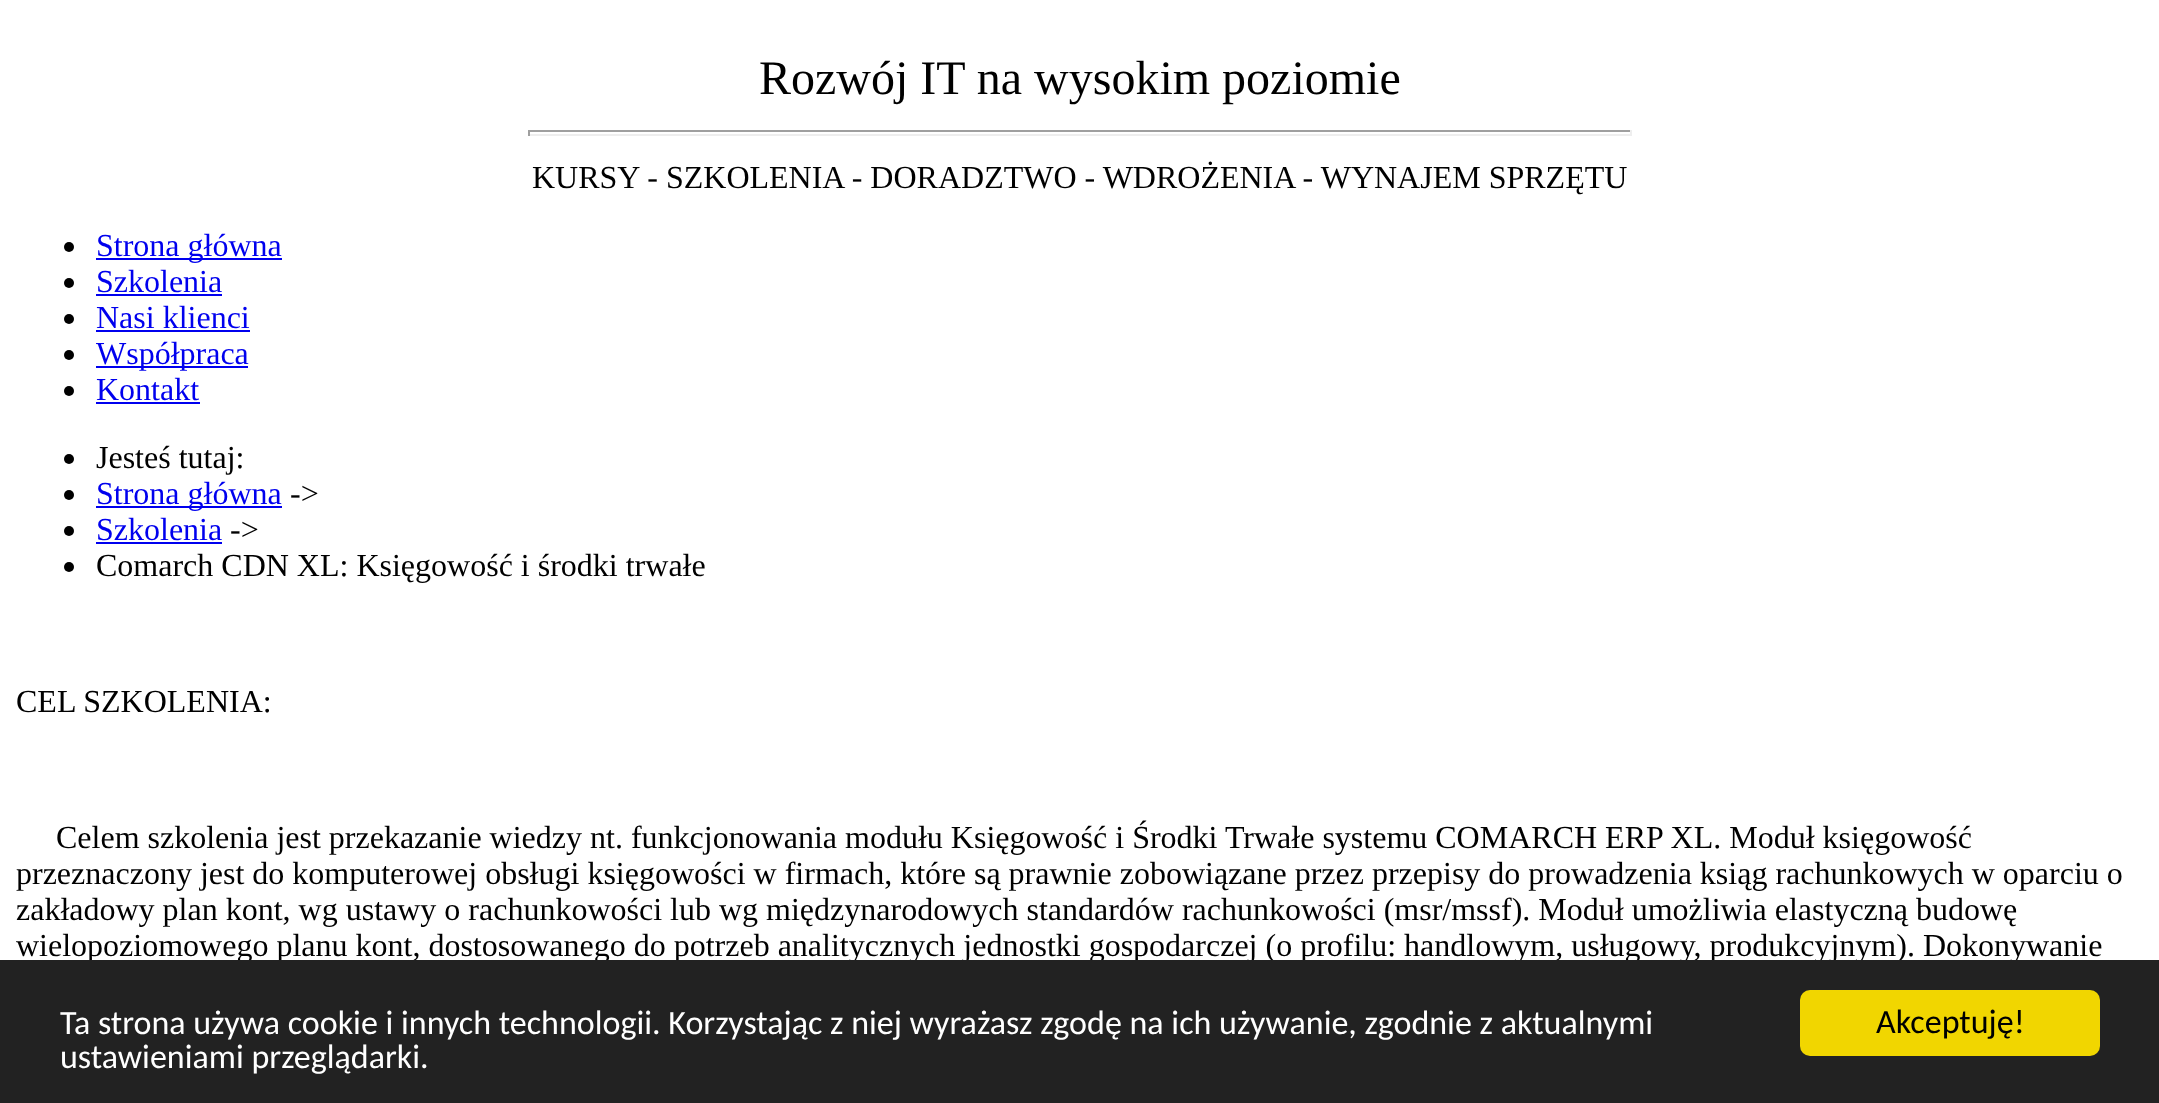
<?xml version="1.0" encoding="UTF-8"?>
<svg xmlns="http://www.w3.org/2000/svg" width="2159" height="1103">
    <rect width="100%" height="100%" fill="#FFFFFF"/>
    <text x="759" y="94" font-family="Liberation Serif" font-size="48" fill="#000000">Rozwój IT na wysokim poziomie</text>
    <rect x="528" y="130" width="1104" height="2" fill="#9F9F9F"/>
    <rect x="1630" y="130" width="2" height="6" fill="#EEEEEE"/>
    <rect x="528" y="134" width="1104" height="2" fill="#EEEEEE"/>
    <rect x="528" y="130" width="2" height="6" fill="#9F9F9F"/>
    <text x="532" y="188" font-family="Liberation Serif" font-size="32" fill="#000000">KURSY - SZKOLENIA - DORADZTWO - WDROŻENIA - WYNAJEM SPRZĘTU</text>
    <circle cx="69" cy="247" r="5" fill="#000000"/>
    <rect x="96" y="258" width="186" height="2" fill="#0000EE"/>
    <text x="96" y="256" font-family="Liberation Serif" font-size="32" fill="#0000EE">Strona główna</text>
    <circle cx="69" cy="283" r="5" fill="#000000"/>
    <text x="96" y="292" font-family="Liberation Serif" font-size="32" fill="#0000EE">Szkolenia</text>
    <rect x="96" y="294" width="126" height="2" fill="#0000EE"/>
    <circle cx="69" cy="319" r="5" fill="#000000"/>
    <text x="96" y="328" font-family="Liberation Serif" font-size="32" fill="#0000EE">Nasi klienci</text>
    <rect x="96" y="330" width="154" height="2" fill="#0000EE"/>
    <circle cx="69" cy="355" r="5" fill="#000000"/>
    <rect x="96" y="366" width="152" height="2" fill="#0000EE"/>
    <text x="96" y="364" font-family="Liberation Serif" font-size="32" fill="#0000EE">Współpraca</text>
    <circle cx="69" cy="391" r="5" fill="#000000"/>
    <text x="96" y="400" font-family="Liberation Serif" font-size="32" fill="#0000EE">Kontakt</text>
    <rect x="96" y="402" width="104" height="2" fill="#0000EE"/>
    <circle cx="69" cy="459" r="5" fill="#000000"/>
    <text x="96" y="468" font-family="Liberation Serif" font-size="32" fill="#000000">Jesteś tutaj:</text>
    <circle cx="69" cy="495" r="5" fill="#000000"/>
    <rect x="96" y="506" width="186" height="2" fill="#0000EE"/>
    <text x="96" y="504" font-family="Liberation Serif" font-size="32" fill="#0000EE">Strona główna</text>
    <text x="290" y="504" font-family="Liberation Serif" font-size="32" fill="#000000">-&gt;</text>
    <circle cx="69" cy="531" r="5" fill="#000000"/>
    <text x="96" y="540" font-family="Liberation Serif" font-size="32" fill="#0000EE">Szkolenia</text>
    <rect x="96" y="542" width="126" height="2" fill="#0000EE"/>
    <text x="230" y="540" font-family="Liberation Serif" font-size="32" fill="#000000">-&gt;</text>
    <circle cx="69" cy="567" r="5" fill="#000000"/>
    <text x="96" y="576" font-family="Liberation Serif" font-size="32" fill="#000000">Comarch CDN XL: Księgowość i środki trwałe</text>
    <text x="16" y="712" font-family="Liberation Serif" font-size="32" fill="#000000">CEL SZKOLENIA:</text>
    <text x="56" y="848" font-family="Liberation Serif" font-size="32" fill="#000000">Celem szkolenia jest przekazanie wiedzy nt. funkcjonowania modułu Księgowość i Środki Trwałe systemu COMARCH ERP XL. Moduł księgowość</text>
    <text font-family="Liberation Serif" font-size="32" fill="#000000">
        <tspan x="16" y="884">przeznaczony jest do komputerowej obsługi księgowości w firmach, które są prawnie zobowiązane przez przepisy do prowadzenia ksiąg rachunkowych w oparciu o</tspan>
        <tspan x="16" y="920">zakładowy plan kont, wg ustawy o rachunkowości lub wg międzynarodowych standardów rachunkowości (msr/mssf). Moduł umożliwia elastyczną budowę</tspan>
        <tspan x="16" y="956">wielopoziomowego planu kont, dostosowanego do potrzeb analitycznych jednostki gospodarczej (o profilu: handlowym, usługowy, produkcyjnym). Dokonywanie</tspan>
    </text>
    <rect x="0" y="960" width="2159" height="143" fill="#222222"/>
    <text font-family="Carlito" font-size="34" fill="#FFFFFF">
        <tspan x="60" y="1034">Ta strona używa cookie i innych technologii. Korzystając z niej wyrażasz zgodę na ich używanie, zgodnie z aktualnymi</tspan>
        <tspan x="60" y="1068">ustawieniami przeglądarki.</tspan>
    </text>
    <rect x="1800" y="990" width="300" height="66" rx="10" fill="#F1D600"/>
    <text x="1876" y="1033" font-family="Carlito" font-size="34" fill="#000000">Akceptuję!</text>
</svg>
